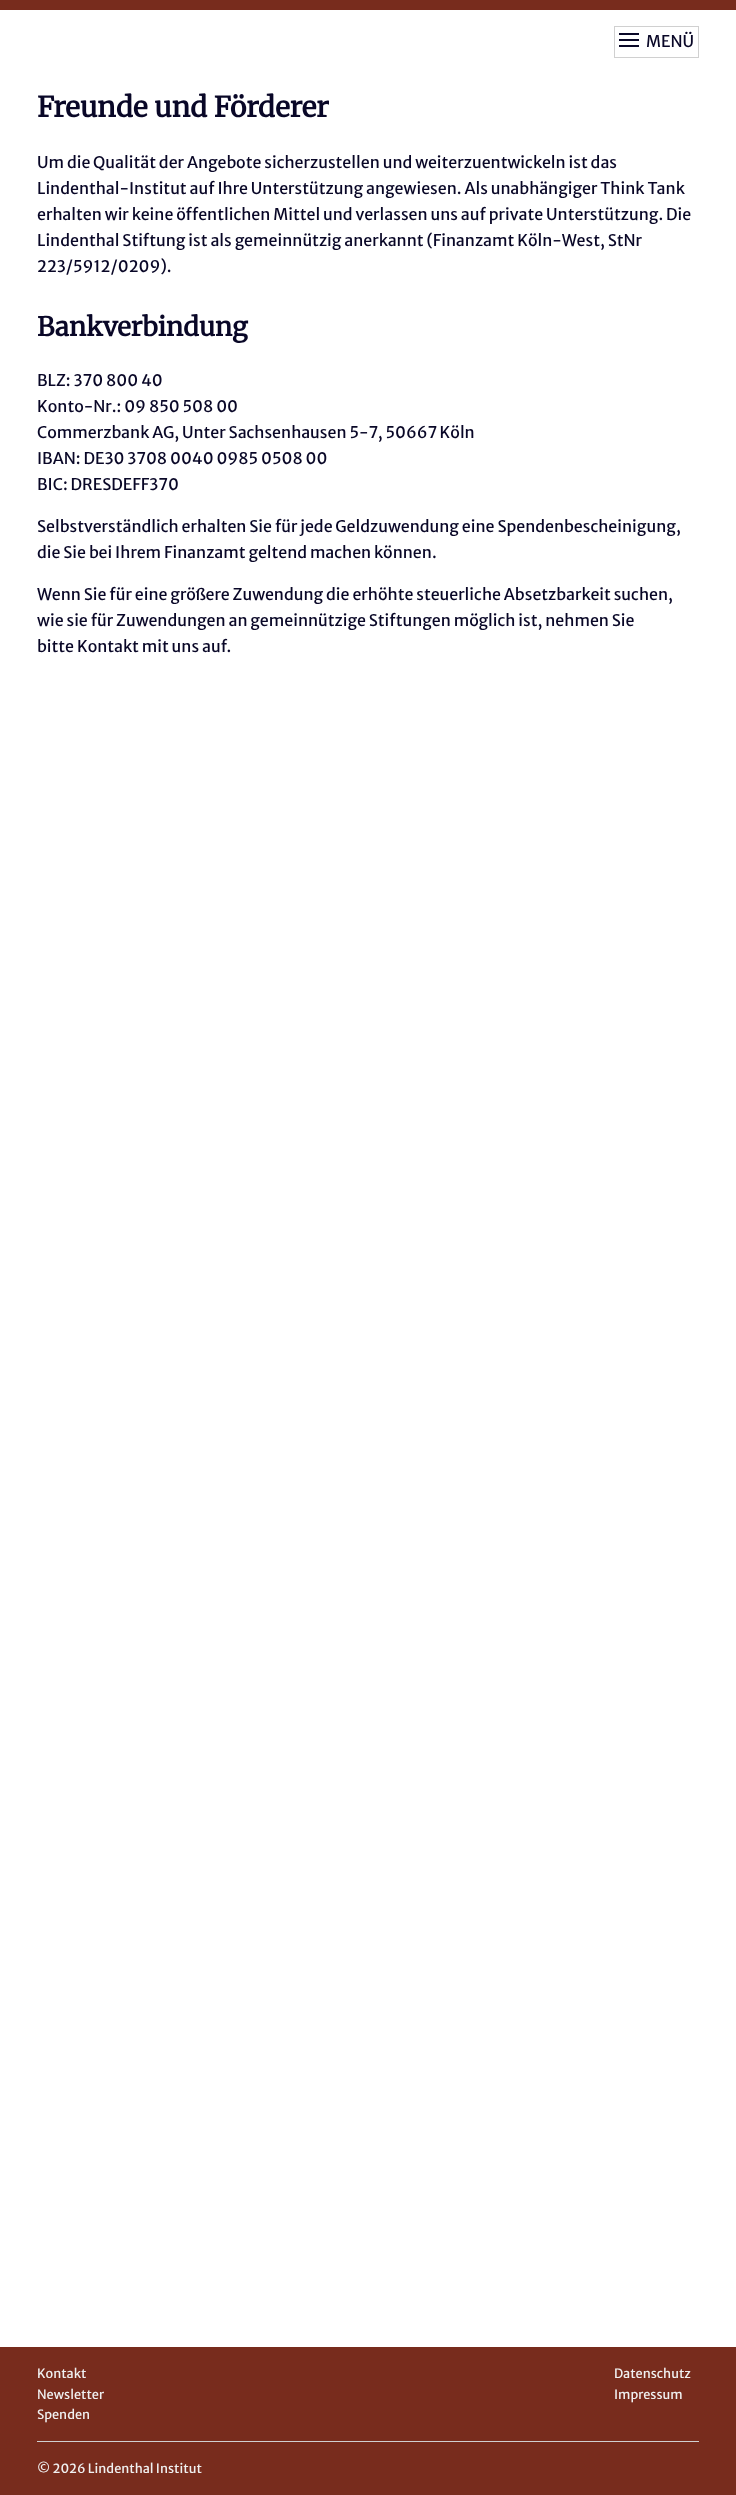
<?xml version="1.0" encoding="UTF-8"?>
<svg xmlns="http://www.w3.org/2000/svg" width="736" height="2495">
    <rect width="100%" height="100%" fill="#FFFFFF"/>
    <rect x="0" y="0" width="736" height="10" fill="#782C1D"/>
    <rect x="614.5" y="26.5" width="84" height="31" fill="none" stroke="#D0D0D0"/>
    <rect x="619" y="39" width="20" height="2" fill="#090727"/>
    <rect x="619" y="33" width="20" height="2" fill="#090727"/>
    <rect x="619" y="45" width="20" height="2" fill="#090727"/>
    <text x="646" y="47" font-family="Merriweather Sans" font-size="16" fill="#090727">MENÜ</text>
    <text x="37" y="117" font-family="Merriweather" font-size="28" font-weight="700" fill="#090727">Freunde und Förderer</text>
    <text font-family="Merriweather Sans" font-size="16" fill="#090727">
        <tspan x="37" y="168">Um die Qualität der Angebote sicherzustellen und weiterzuentwickeln ist das</tspan>
        <tspan x="37" y="194">Lindenthal-Institut auf Ihre Unterstützung angewiesen. Als unabhängiger Think Tank</tspan>
        <tspan x="37" y="220">erhalten wir keine öffentlichen Mittel und verlassen uns auf private Unterstützung. Die</tspan>
        <tspan x="37" y="246">Lindenthal Stiftung ist als gemeinnützig anerkannt (Finanzamt Köln-West, StNr</tspan>
        <tspan x="37" y="272">223/5912/0209).</tspan>
    </text>
    <text x="37" y="336" font-family="Merriweather" font-size="26" font-weight="700" fill="#090727">Bankverbindung</text>
    <text font-family="Merriweather Sans" font-size="16" fill="#090727">
        <tspan x="37" y="386">BLZ: 370 800 40</tspan>
        <tspan x="37" y="412">Konto-Nr.: 09 850 508 00</tspan>
        <tspan x="37" y="438">Commerzbank AG, Unter Sachsenhausen 5-7, 50667 Köln</tspan>
        <tspan x="37" y="464">IBAN: DE30 3708 0040 0985 0508 00</tspan>
        <tspan x="37" y="490">BIC: DRESDEFF370</tspan>
    </text>
    <text font-family="Merriweather Sans" font-size="16" fill="#090727">
        <tspan x="37" y="532">Selbstverständlich erhalten Sie für jede Geldzuwendung eine Spendenbescheinigung,</tspan>
        <tspan x="37" y="558">die Sie bei Ihrem Finanzamt geltend machen können.</tspan>
    </text>
    <text font-family="Merriweather Sans" font-size="16" fill="#090727">
        <tspan x="37" y="600">Wenn Sie für eine größere Zuwendung die erhöhte steuerliche Absetzbarkeit suchen,</tspan>
        <tspan x="37" y="626">wie sie für Zuwendungen an gemeinnützige Stiftungen möglich ist, nehmen Sie</tspan>
        <tspan x="37" y="652">bitte Kontakt mit uns auf.</tspan>
    </text>
    <rect x="0" y="2347" width="736" height="148" fill="#782C1D"/>
    <text font-family="Merriweather Sans" font-size="12.75" fill="#F0F0F0">
        <tspan x="37" y="2378">Kontakt</tspan>
        <tspan x="37" y="2399">Newsletter</tspan>
        <tspan x="37" y="2419">Spenden</tspan>
    </text>
    <text font-family="Merriweather Sans" font-size="12.75" fill="#F0F0F0">
        <tspan x="614" y="2378">Datenschutz</tspan>
        <tspan x="614" y="2399">Impressum</tspan>
    </text>
    <rect x="37" y="2441" width="662" height="1" fill="#D0D0D0"/>
    <text x="37" y="2473" font-family="Merriweather Sans" font-size="12.75" fill="#F0F0F0">© 2026 Lindenthal Institut</text>
</svg>
